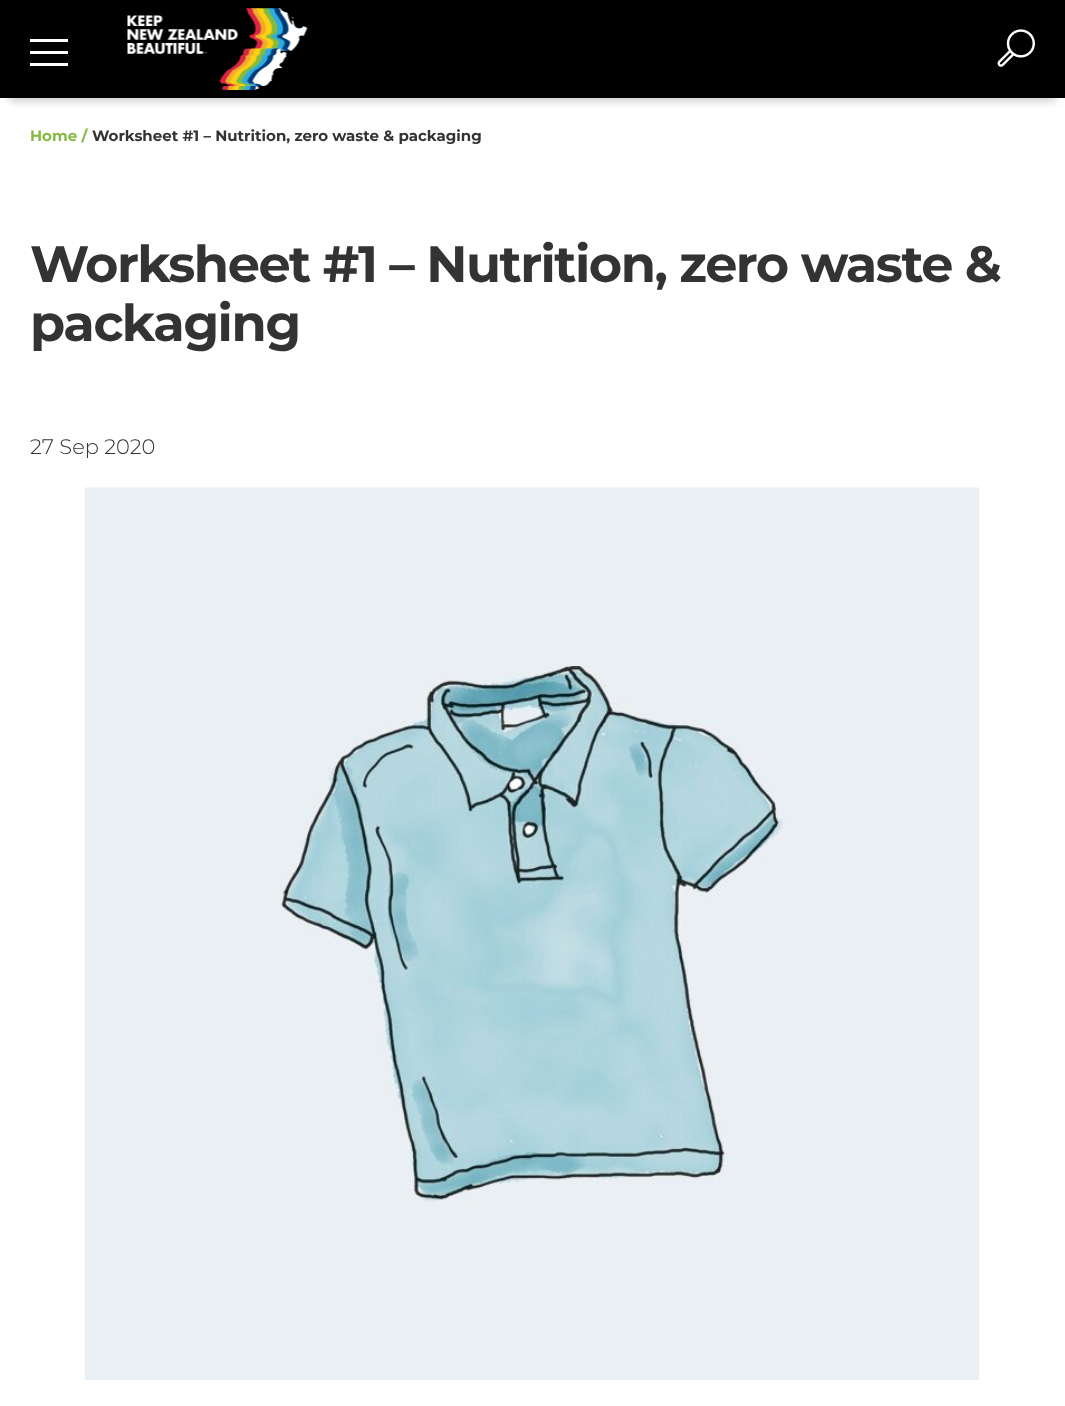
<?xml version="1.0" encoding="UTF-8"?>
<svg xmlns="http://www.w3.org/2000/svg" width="1065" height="1406">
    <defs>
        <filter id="blur1" x="-50%" y="-200%" width="200%" height="500%"><feGaussianBlur stdDeviation="4.5"/></filter>
    </defs>
    <rect width="100%" height="100%" fill="#FFFFFF"/>
    <rect x="9" y="21" width="1047" height="80" fill="#000000" fill-opacity="0.2" filter="url(#blur1)"/>
    <rect x="0" y="0" width="1065" height="98" fill="#000000"/>
    <rect x="30" y="39" width="38" height="3" fill="#FFFFFF"/>
    <rect x="30" y="51" width="38" height="3" fill="#FFFFFF"/>
    <rect x="30" y="63" width="38" height="3" fill="#FFFFFF"/>
    <image x="127" y="8" width="181" height="82" href="img_01.png"/>
    <image x="997" y="29" width="38" height="38" href="img_02.png"/>
    <text x="30" y="141" font-family="Montserrat" font-size="15" font-weight="700" fill="#85BA41">Home /</text>
    <text x="92" y="141" font-family="Montserrat" font-size="15" font-weight="700" fill="#333333">Worksheet #1 – Nutrition, zero waste &amp; packaging</text>
    <text font-family="Montserrat" font-size="51" font-weight="700" letter-spacing="-1.5" fill="#333333">
        <tspan x="30" y="282">Worksheet #1 – Nutrition, zero waste &amp;</tspan>
        <tspan x="30" y="341">packaging</tspan>
    </text>
    <text x="30" y="454" font-family="Montserrat" font-size="21" font-weight="300" fill="#333333">27 Sep 2020</text>
    <image x="84" y="487" width="896" height="893" href="img_03.png"/>
</svg>
